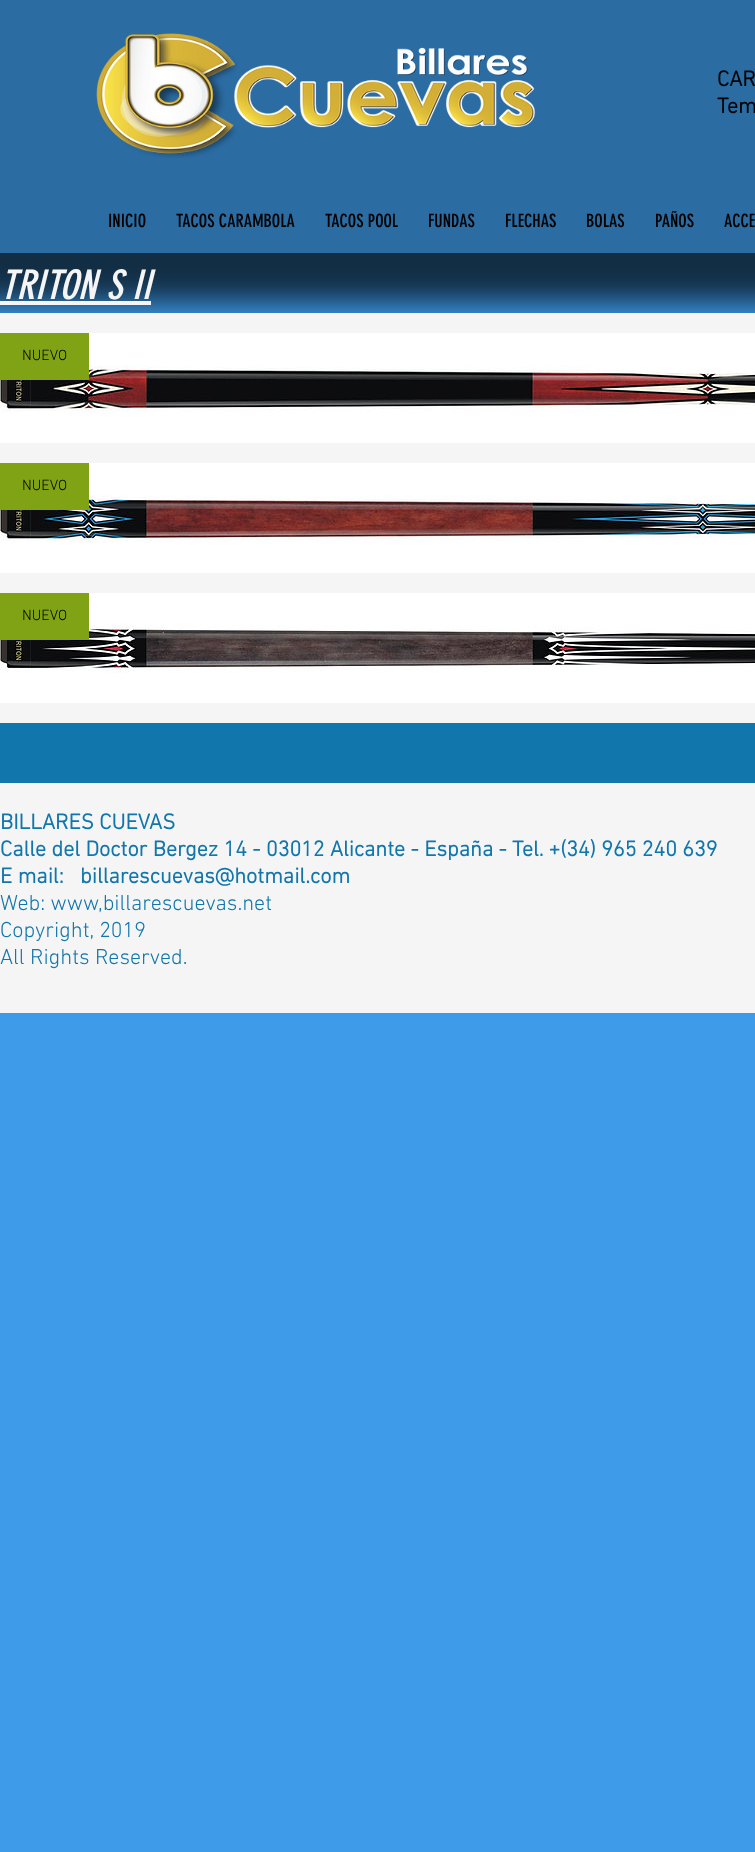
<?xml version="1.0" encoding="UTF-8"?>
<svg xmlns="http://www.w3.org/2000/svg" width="755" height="1852">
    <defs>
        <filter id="blur1" x="-50%" y="-200%" width="200%" height="500%"><feGaussianBlur stdDeviation="15"/></filter>
    </defs>
    <rect width="100%" height="100%" fill="#3D9BE9"/>
    <rect x="-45" y="-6" width="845" height="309" fill="#000000" fill-opacity="0.7" filter="url(#blur1)"/>
    <rect x="0" y="0" width="755" height="253" fill="#2B6CA3"/>
    <image x="96" y="33" width="440" height="125" href="img_01.png"/>
    <text font-family="'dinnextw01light'" font-size="22" font-weight="700" fill="#020202">
        <tspan x="717" y="86">CAR</tspan>
        <tspan x="717" y="113">Tem</tspan>
    </text>
    <text x="108" y="227" font-family="'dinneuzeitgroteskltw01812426'" font-size="18" fill="#020202">INICIO</text>
    <text x="176" y="227" font-family="'dinneuzeitgroteskltw01812426'" font-size="18" fill="#020202">TACOS CARAMBOLA</text>
    <text x="325" y="227" font-family="'dinneuzeitgroteskltw01812426'" font-size="18" fill="#020202">TACOS POOL</text>
    <text x="428" y="227" font-family="'dinneuzeitgroteskltw01812426'" font-size="18" fill="#020202">FUNDAS</text>
    <text x="505" y="227" font-family="'dinneuzeitgroteskltw01812426'" font-size="18" fill="#020202">FLECHAS</text>
    <text x="586" y="227" font-family="'dinneuzeitgroteskltw01812426'" font-size="18" fill="#020202">BOLAS</text>
    <text x="655" y="227" font-family="'dinneuzeitgroteskltw01812426'" font-size="18" fill="#020202">PAÑOS</text>
    <text x="724" y="227" font-family="'dinneuzeitgroteskltw01812426'" font-size="18" fill="#020202">ACCE</text>
    <text x="0" y="299" font-family="'dinneuzeitgroteskltw01812426'" font-size="40" font-style="italic" fill="#F5F5F5">TRITON S II</text>
    <rect x="0" y="301" width="151" height="4" fill="#F5F5F5"/>
    <rect x="0" y="313" width="755" height="410" fill="#F5F5F5"/>
    <image x="0" y="333" width="755" height="110" href="img_02.png"/>
    <rect x="0" y="333" width="89" height="47" fill="#80A315"/>
    <text x="22" y="360" font-family="'dinnextw01light'" font-size="15" font-weight="300" fill="#020202">NUEVO</text>
    <image x="0" y="463" width="755" height="110" href="img_03.png"/>
    <rect x="0" y="463" width="89" height="47" fill="#80A315"/>
    <text x="22" y="490" font-family="'dinnextw01light'" font-size="15" font-weight="300" fill="#020202">NUEVO</text>
    <image x="0" y="593" width="755" height="110" href="img_04.png"/>
    <rect x="0" y="593" width="89" height="47" fill="#80A315"/>
    <text x="22" y="620" font-family="'dinnextw01light'" font-size="15" font-weight="300" fill="#020202">NUEVO</text>
    <rect x="0" y="723" width="755" height="60" fill="#1176AC"/>
    <rect x="0" y="783" width="755" height="230" fill="#F5F5F5"/>
    <text font-family="'dinnextw01light'" font-size="22" font-weight="700" fill="#1176AC">
        <tspan x="0" y="829">BILLARES CUEVAS</tspan>
        <tspan x="0" y="856">Calle del Doctor Bergez 14 - 03012 Alicante - España - Tel. +(34) 965 240 639</tspan>
        <tspan x="0" y="883">E mail:</tspan>
    </text>
    <text x="80" y="883" font-family="'dinnextw01light'" font-size="22" font-weight="700" fill="#1176AC">billarescuevas@hotmail.com</text>
    <text font-family="'dinnextw01light'" font-size="22" font-weight="300" fill="#1176AC">
        <tspan x="0" y="910">Web: www,billarescuevas.net</tspan>
        <tspan x="0" y="937">Copyright, 2019</tspan>
        <tspan x="0" y="964">All Rights Reserved.</tspan>
    </text>
</svg>
